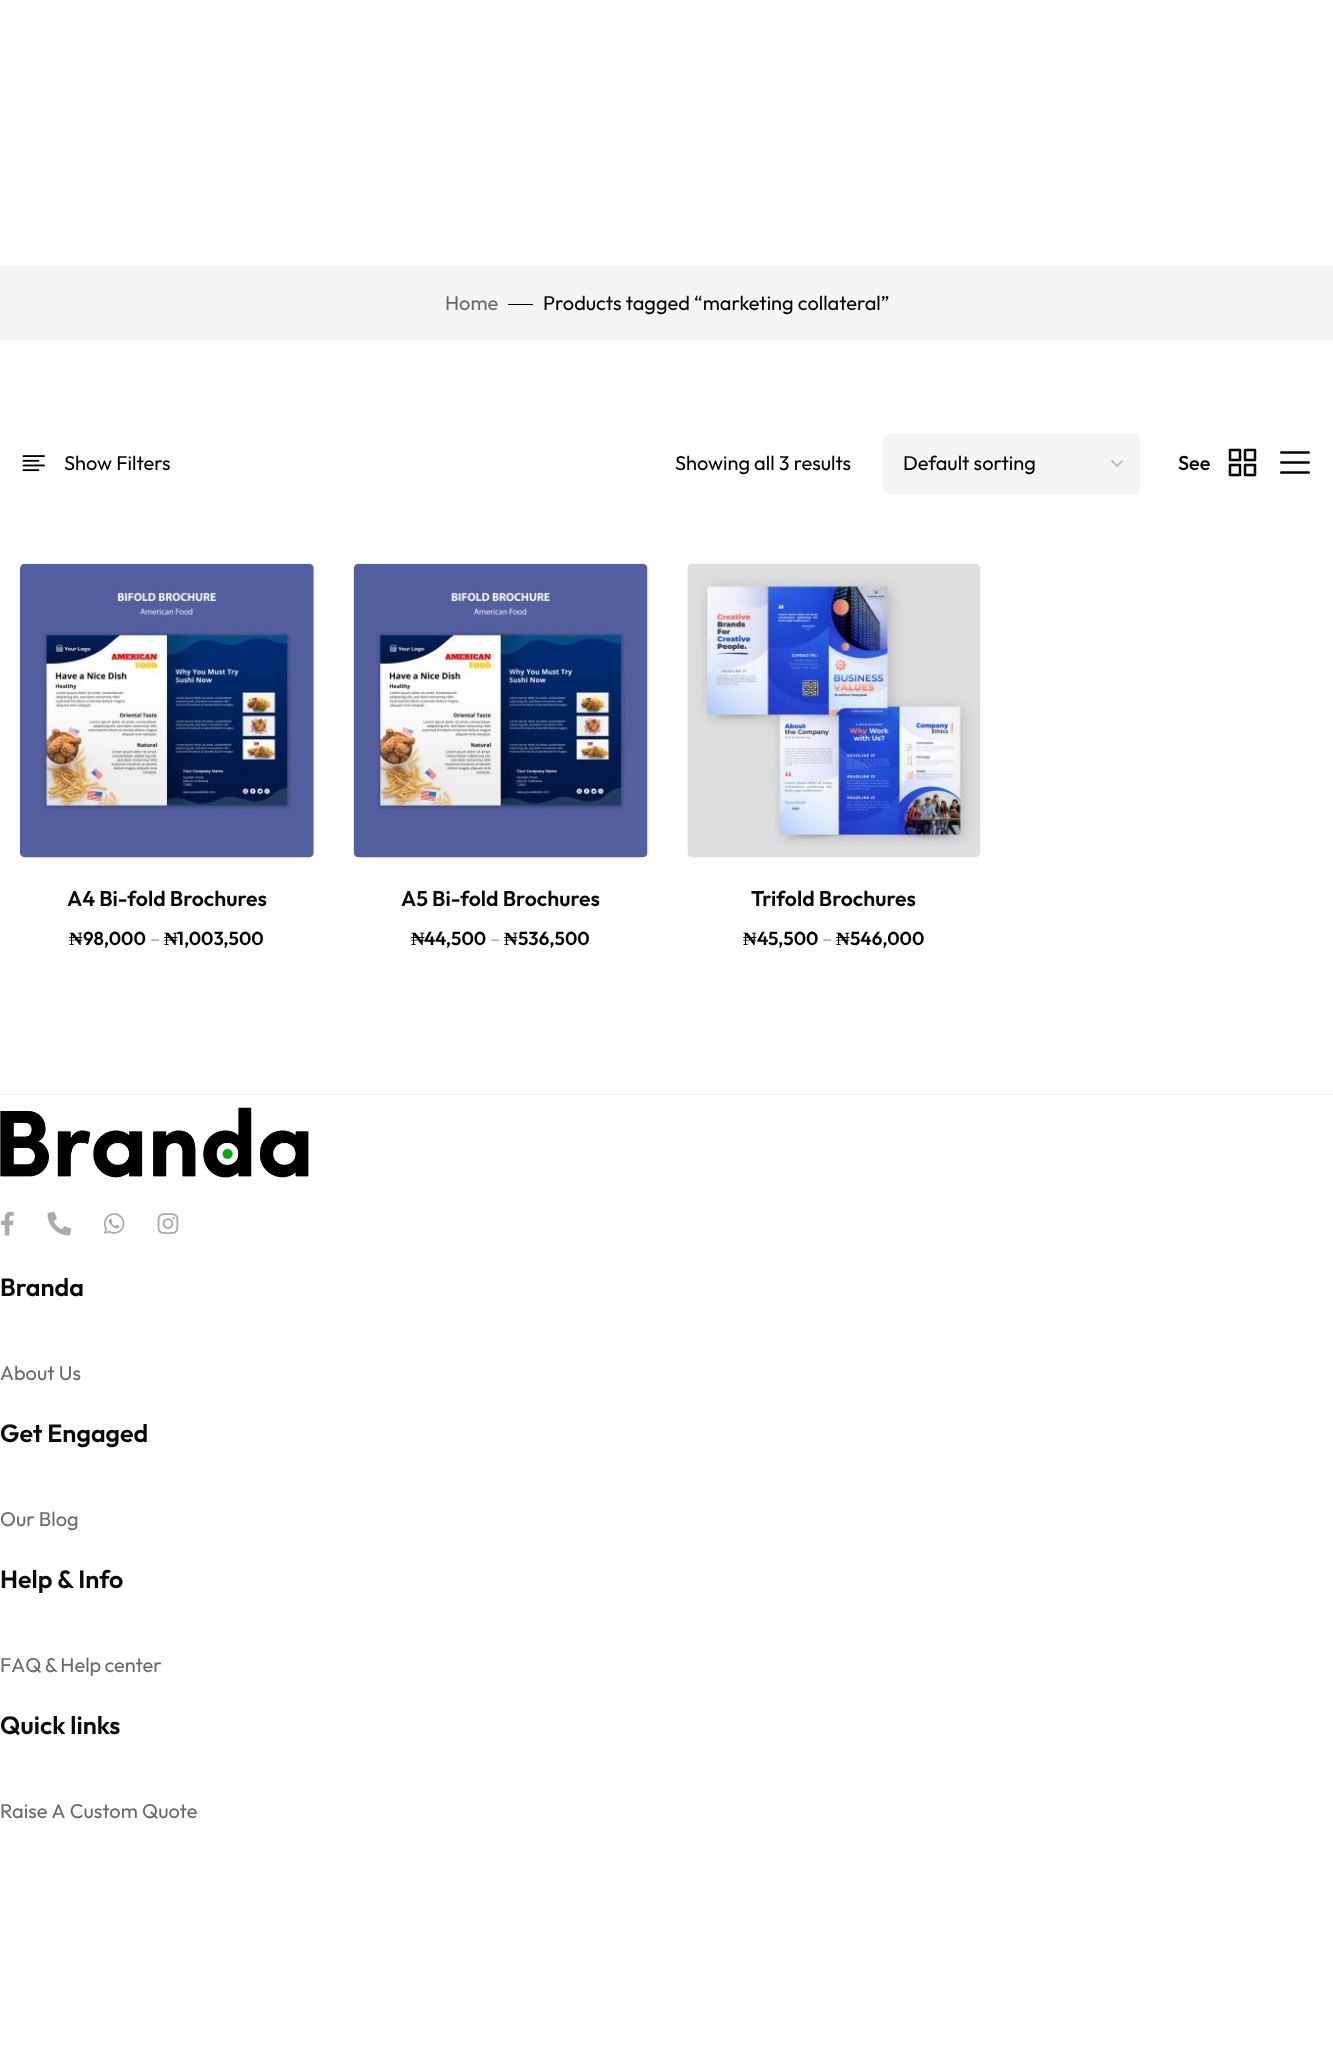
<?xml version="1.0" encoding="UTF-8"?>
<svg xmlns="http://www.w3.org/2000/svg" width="1333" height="2049">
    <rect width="100%" height="100%" fill="#FFFFFF"/>
    <rect x="0" y="266" width="1333" height="74" fill="#F5F5F5"/>
    <text x="445" y="310" font-family="Outfit" font-size="20" fill="#696969">Home</text>
    <rect x="508" y="304" width="25" height="1" fill="#000000"/>
    <text x="543" y="310" font-family="Outfit" font-size="20" fill="#000000">Products tagged “marketing collateral”</text>
    <image x="22" y="455" width="23" height="17" href="img_01.png"/>
    <text x="64" y="470" font-family="Outfit" font-size="20" fill="#000000">Show Filters</text>
    <text x="675" y="470" font-family="Outfit" font-size="20" fill="#000000">Showing all 3 results</text>
    <rect x="883" y="434" width="257" height="60" rx="6" fill="#F5F5F5"/>
    <path d="M 1111.5 460.5 L 1117 466 L 1122.5 460.5" fill="none" stroke="#BBBBBB" stroke-width="1.8"/>
    <text x="903" y="470" font-family="Outfit" font-size="20" fill="#000000">Default sorting</text>
    <text x="1178" y="470" font-family="Outfit" font-size="20" font-weight="500" fill="#000000">See</text>
    <image x="1228" y="448" width="29" height="29" href="img_02.png"/>
    <image x="1280" y="451" width="30" height="23" href="img_03.png"/>
    <rect x="19.5" y="563.5" width="295" height="295" rx="5.5" fill="none" stroke="#F7F7F7"/>
    <image x="20" y="563" width="294" height="295" href="img_04.png"/>
    <text x="67" y="906" font-family="Outfit" font-size="21.25" font-weight="600" fill="#0A0A0A">A4 Bi-fold Brochures</text>
    <text x="69" y="945" font-family="Liberation Serif" font-size="18.75" font-weight="700" fill="#000000">₦</text>
    <text x="83" y="945" font-family="Outfit" font-size="18.75" font-weight="600" fill="#000000">98,000</text>
    <text x="150" y="945" font-family="Outfit" font-size="18.75" fill="#ABABAB">–</text>
    <text x="164" y="945" font-family="Liberation Serif" font-size="18.75" font-weight="700" fill="#000000">₦</text>
    <text x="177" y="945" font-family="Outfit" font-size="18.75" font-weight="600" fill="#000000">1,003,500</text>
    <rect x="353.5" y="563.5" width="295" height="295" rx="5.5" fill="none" stroke="#F7F7F7"/>
    <image x="353" y="563" width="295" height="295" href="img_05.png"/>
    <text x="401" y="906" font-family="Outfit" font-size="21.25" font-weight="600" fill="#0A0A0A">A5 Bi-fold Brochures</text>
    <text x="411" y="945" font-family="Liberation Serif" font-size="18.75" font-weight="700" fill="#000000">₦</text>
    <text x="424" y="945" font-family="Outfit" font-size="18.75" font-weight="600" fill="#000000">44,500</text>
    <text x="490" y="945" font-family="Outfit" font-size="18.75" fill="#ABABAB">–</text>
    <text x="504" y="945" font-family="Liberation Serif" font-size="18.75" font-weight="700" fill="#000000">₦</text>
    <text x="518" y="945" font-family="Outfit" font-size="18.75" font-weight="600" fill="#000000">536,500</text>
    <rect x="686.5" y="563.5" width="294" height="295" rx="5.5" fill="none" stroke="#F7F7F7"/>
    <image x="687" y="564" width="293" height="294" href="img_06.png"/>
    <text x="751" y="906" font-family="Outfit" font-size="21.25" font-weight="600" fill="#0A0A0A">Trifold Brochures</text>
    <text x="743" y="945" font-family="Liberation Serif" font-size="18.75" font-weight="700" fill="#000000">₦</text>
    <text x="757" y="945" font-family="Outfit" font-size="18.75" font-weight="600" fill="#000000">45,500</text>
    <text x="822" y="945" font-family="Outfit" font-size="18.75" fill="#ABABAB">–</text>
    <text x="836" y="945" font-family="Liberation Serif" font-size="18.75" font-weight="700" fill="#000000">₦</text>
    <text x="850" y="945" font-family="Outfit" font-size="18.75" font-weight="600" fill="#000000">546,000</text>
    <rect x="0" y="1094" width="1333" height="1" fill="#EDEDED"/>
    <image x="0" y="1107" width="309" height="71" href="img_07.png"/>
    <image x="1" y="1211" width="13" height="25" href="img_08.png"/>
    <image x="47" y="1211" width="25" height="25" href="img_09.png"/>
    <image x="103" y="1213" width="22" height="21" href="img_10.png"/>
    <image x="157" y="1213" width="22" height="21" href="img_11.png"/>
    <text x="0" y="1296" font-family="Outfit" font-size="25" font-weight="600" fill="#0A0A0A">Branda</text>
    <text x="0" y="1380" font-family="Outfit" font-size="20" fill="#696969">About Us</text>
    <text x="0" y="1442" font-family="Outfit" font-size="25" font-weight="600" fill="#0A0A0A">Get Engaged</text>
    <text x="0" y="1526" font-family="Outfit" font-size="20" fill="#696969">Our Blog</text>
    <text x="0" y="1588" font-family="Outfit" font-size="25" font-weight="600" fill="#0A0A0A">Help &amp; Info</text>
    <text x="0" y="1672" word-spacing="-1" font-family="Outfit" font-size="20" fill="#696969">FAQ &amp; Help center</text>
    <text x="0" y="1734" font-family="Outfit" font-size="25" font-weight="600" fill="#0A0A0A">Quick links</text>
    <text x="0" y="1818" font-family="Outfit" font-size="20" fill="#696969">Raise A Custom Quote</text>
</svg>
